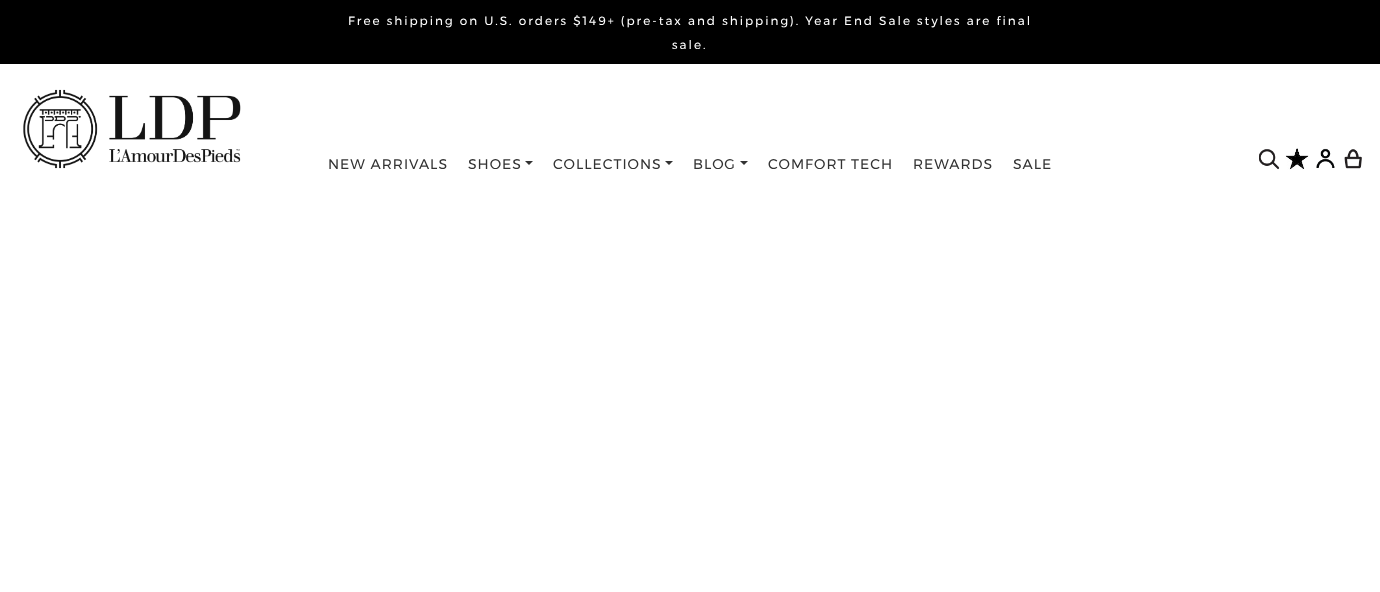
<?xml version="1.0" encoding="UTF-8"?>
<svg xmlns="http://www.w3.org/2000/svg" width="1380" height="592">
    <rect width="100%" height="100%" fill="#FFFFFF"/>
    <rect x="0" y="0" width="1380" height="64" fill="#000000"/>
    <text x="348" y="25" font-family="Montserrat" font-size="12" letter-spacing="2" fill="#FFFFFF">Free shipping on U.S. orders $149+ (pre-tax and shipping). Year End Sale styles are final</text>
    <text x="672" y="49" font-family="Montserrat" font-size="12" letter-spacing="2" fill="#FFFFFF">sale.</text>
    <image x="23" y="89" width="218" height="80" href="img_01.png"/>
    <text x="328" y="169" font-family="Montserrat" font-size="14" letter-spacing="1" fill="#333333">NEW ARRIVALS</text>
    <text x="468" y="169" font-family="Montserrat" font-size="14" letter-spacing="1" fill="#333333">SHOES</text>
    <path d="M 525 161 H 533 L 529 165 Z" fill="#333333"/>
    <text x="553" y="169" font-family="Montserrat" font-size="14" letter-spacing="1" fill="#333333">COLLECTIONS</text>
    <path d="M 665 161 H 673 L 669 165 Z" fill="#333333"/>
    <text x="693" y="169" font-family="Montserrat" font-size="14" letter-spacing="1" fill="#333333">BLOG</text>
    <path d="M 740 161 H 748 L 744 165 Z" fill="#333333"/>
    <text x="768" y="169" font-family="Montserrat" font-size="14" letter-spacing="1" fill="#333333">COMFORT TECH</text>
    <text x="913" y="169" font-family="Montserrat" font-size="14" letter-spacing="1" fill="#333333">REWARDS</text>
    <text x="1013" y="169" font-family="Montserrat" font-size="14" letter-spacing="1" fill="#333333">SALE</text>
    <image x="1259" y="149" width="21" height="21" href="img_02.png"/>
    <image x="1285" y="148" width="24" height="22" href="img_03.png"/>
    <image x="1316" y="148" width="19" height="20" href="img_04.png"/>
    <image x="1344" y="149" width="18" height="20" href="img_05.png"/>
</svg>
